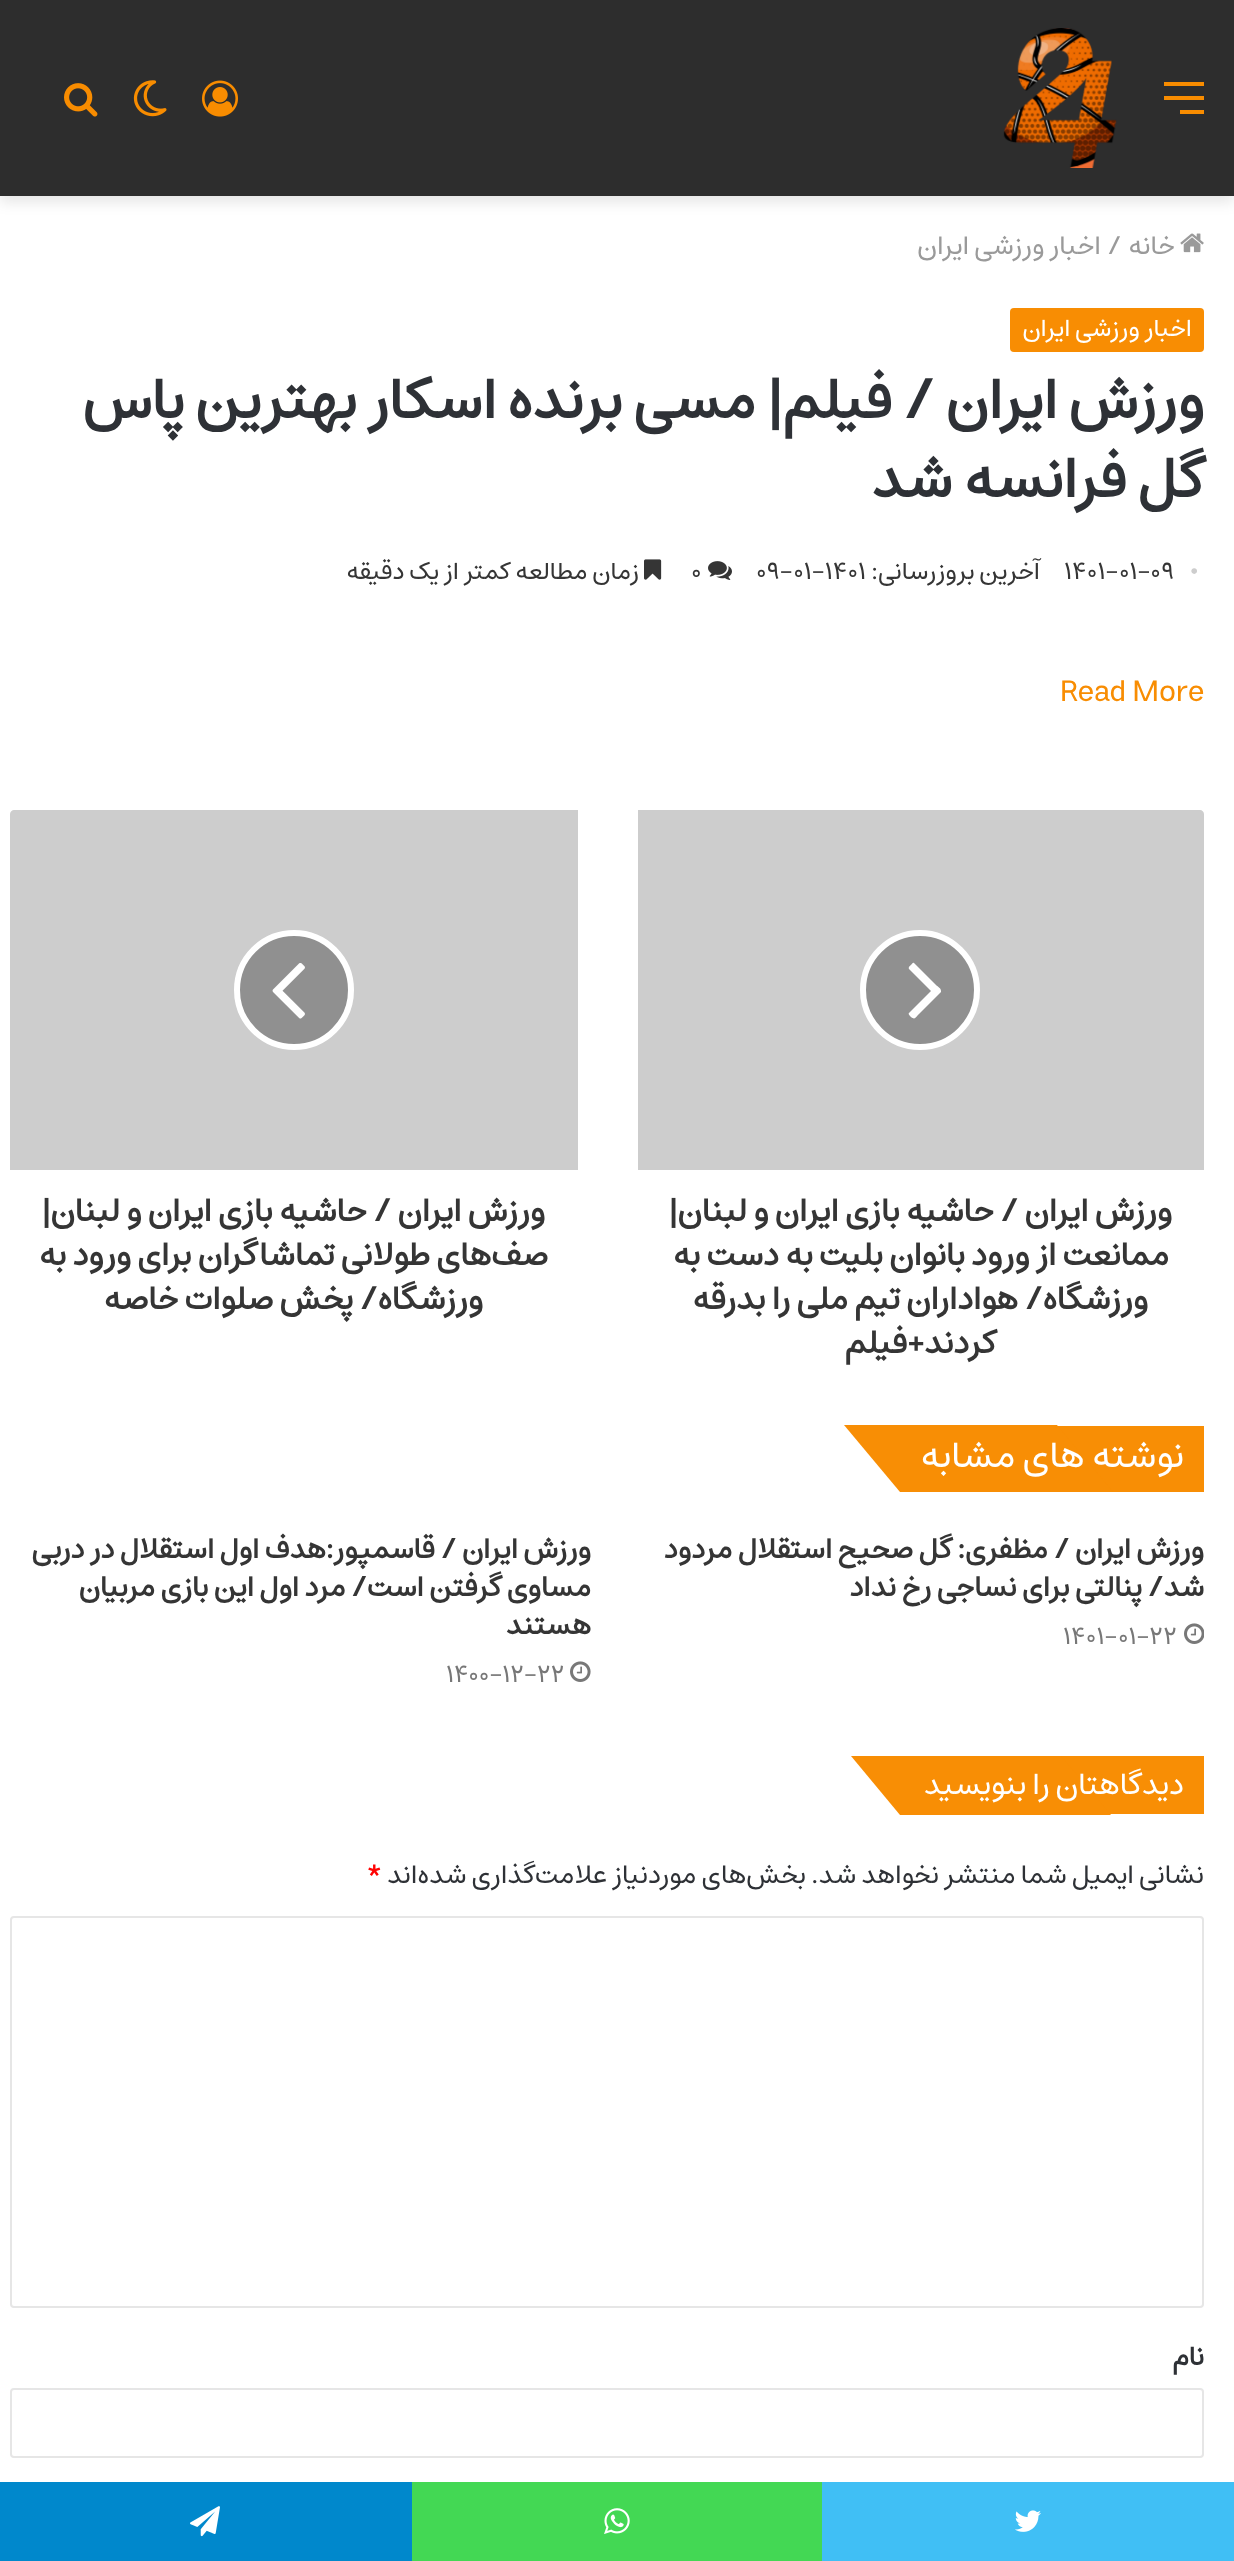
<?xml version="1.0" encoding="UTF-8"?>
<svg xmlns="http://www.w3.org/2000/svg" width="1234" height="2561">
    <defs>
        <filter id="blur1" x="-50%" y="-200%" width="200%" height="500%"><feGaussianBlur stdDeviation="7"/></filter>
    </defs>
    <rect width="100%" height="100%" fill="#FFFFFF"/>
    <rect x="0" y="6" width="1234" height="196" fill="#000000" fill-opacity="0.1" filter="url(#blur1)"/>
    <rect x="0" y="0" width="1234" height="196" fill="#2D2D2D"/>
    <rect x="1164" y="96" width="40" height="4" fill="#F88C00"/>
    <rect x="1164" y="82" width="40" height="4" fill="#F88C00"/>
    <rect x="1180" y="110" width="24" height="4" fill="#F88C00"/>
    <image x="1003" y="28" width="114" height="140" href="img_01.png"/>
    <image x="202" y="80" width="36" height="37" href="img_02.png"/>
    <image x="133" y="80" width="34" height="37" href="img_03.png"/>
    <image x="64" y="83" width="34" height="34" href="img_04.png"/>
    <image x="1180" y="233" width="24" height="20" href="img_05.png"/>
    <text x="1175" y="254" font-family="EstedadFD" font-size="26" direction="rtl" fill="#9A9A9A">خانه</text>
    <text x="1107" y="254" font-family="EstedadFD" font-size="26" fill="#9A9A9A">/</text>
    <text x="1101" y="254" font-family="EstedadFD" font-size="26" direction="rtl" fill="#9A9A9A">اخبار ورزشی ایران</text>
    <rect x="1010" y="308" width="194" height="44" rx="4" fill="#F88D03"/>
    <text x="1192" y="336" font-family="EstedadFD" font-size="24" direction="rtl" fill="#FFFFFF">اخبار ورزشی ایران</text>
    <text font-family="EstedadFD" font-size="56" font-weight="700" direction="rtl" fill="#2E3136">
        <tspan x="1204" y="418">ورزش ایران / فیلم| مسی برنده اسکار بهترین پاس</tspan>
        <tspan x="1204" y="497">گل فرانسه شد</tspan>
    </text>
    <text x="1190" y="579" font-family="Liberation Serif" font-size="24" fill="#CDCDCD">•</text>
    <text x="1064" y="579" font-family="EstedadFD" font-size="24" fill="#353535">۱۴۰۱-۰۱-۰۹</text>
    <text x="1040" y="579" font-family="EstedadFD" font-size="24" direction="rtl" fill="#353535">آخرین بروزرسانی:</text>
    <text x="756" y="579" font-family="EstedadFD" font-size="24" fill="#353535">۰۹-۰۱-۱۴۰۱</text>
    <image x="708" y="561" width="24" height="19" href="img_06.png"/>
    <text x="691" y="579" font-family="EstedadFD" font-size="24" fill="#353535">۰</text>
    <image x="644" y="559" width="18" height="21" href="img_07.png"/>
    <text x="639" y="579" font-family="EstedadFD" font-size="24" direction="rtl" fill="#353535">زمان مطالعه کمتر از یک دقیقه</text>
    <text x="1060" y="701" font-family="EstedadFD" font-size="30" fill="#F88D03">Read More</text>
    <path d="M 638 810 H 1200 C 1202 810 1204 812 1204 814 V 1170 H 638 Z" fill="#CDCDCD"/>
    <circle cx="920" cy="990" r="57" fill="#909090" stroke="#FFFFFF" stroke-width="6"/>
    <path d="M 941 991 V 992 L 919 1014 C 915 1018 915 1020 911 1017 C 909 1015 908 1014 909 1013 L 931 991 L 909 969 C 908 967 910 966 911 965 C 912 964 913 962 914 963 L 936 985 C 938 987 941 988 941 991 Z" fill="#FFFFFF"/>
    <text x="1172" y="1221" font-family="EstedadFD" font-size="32" font-weight="700" direction="rtl" fill="#353535">ورزش ایران / حاشیه بازی ایران و لبنان|</text>
    <text x="1169" y="1265" font-family="EstedadFD" font-size="32" font-weight="700" direction="rtl" fill="#353535">ممانعت از ورود بانوان بلیت به دست به</text>
    <text x="1148" y="1309" font-family="EstedadFD" font-size="32" font-weight="700" direction="rtl" fill="#353535">ورزشگاه/ هواداران تیم ملی را بدرقه</text>
    <text x="996" y="1353" font-family="EstedadFD" font-size="32" font-weight="700" direction="rtl" fill="#353535">کردند+فیلم</text>
    <path d="M 14 810 H 578 V 1170 H 10 V 814 C 10 812 12 810 14 810 Z" fill="#CDCDCD"/>
    <circle cx="294" cy="990" r="57" fill="#909090" stroke="#FFFFFF" stroke-width="6"/>
    <image x="272" y="963" width="33" height="56" href="img_08.png"/>
    <text x="545" y="1221" font-family="EstedadFD" font-size="32" font-weight="700" direction="rtl" fill="#353535">ورزش ایران / حاشیه بازی ایران و لبنان|</text>
    <text x="548" y="1265" font-family="EstedadFD" font-size="32" font-weight="700" direction="rtl" fill="#353535">صف‌های طولانی تماشاگران برای ورود به</text>
    <text x="483" y="1309" font-family="EstedadFD" font-size="32" font-weight="700" direction="rtl" fill="#353535">ورزشگاه/ پخش صلوات خاصه</text>
    <rect x="1057" y="1426" width="147" height="66" fill="#F88E05"/>
    <path d="M 844 1425 H 1057 L 1113 1492 H 900 Z" fill="#F88E05"/>
    <text x="1184" y="1467" font-family="EstedadFD" font-size="36" direction="rtl" fill="#FFFFFF">نوشته های مشابه</text>
    <text font-family="EstedadFD" font-size="28" font-weight="700" direction="rtl" fill="#353535">
        <tspan x="1204" y="1558">ورزش ایران / مظفری: گل صحیح استقلال مردود</tspan>
        <tspan x="1204" y="1596">شد/ پنالتی برای نساجی رخ نداد</tspan>
    </text>
    <image x="1184" y="1623" width="20" height="21" href="img_09.png"/>
    <text x="1063" y="1644" font-family="EstedadFD" font-size="24" fill="#777777">۱۴۰۱-۰۱-۲۲</text>
    <text font-family="EstedadFD" font-size="28" font-weight="700" direction="rtl" fill="#353535">
        <tspan x="591" y="1558">ورزش ایران / قاسمپور:هدف اول استقلال در دربی</tspan>
        <tspan x="591" y="1596">مساوی گرفتن است/ مرد اول</tspan>
    </text>
    <text x="254" y="1596" font-family="EstedadFD" font-size="28" font-weight="700" direction="rtl" fill="#353535">این بازی مربیان</text>
    <text x="591" y="1634" font-family="EstedadFD" font-size="28" font-weight="700" direction="rtl" fill="#353535">هستند</text>
    <image x="570" y="1661" width="21" height="21" href="img_10.png"/>
    <text x="446" y="1682" font-family="EstedadFD" font-size="24" fill="#777777">۱۴۰۰-۱۲-۲۲</text>
    <rect x="1061" y="1756" width="143" height="58" fill="#F88E05"/>
    <path d="M 851 1756 H 1061 L 1111 1815 H 900 Z" fill="#F88E05"/>
    <text x="1184" y="1794" font-family="EstedadFD" font-size="30" direction="rtl" fill="#FFFFFF">دیدگاهتان را بنویسید</text>
    <text x="1204" y="1883" font-family="EstedadFD" font-size="26" direction="rtl" fill="#2E3136">نشانی ایمیل شما منتشر نخواهد شد.</text>
    <text x="806" y="1883" font-family="EstedadFD" font-size="26" direction="rtl" fill="#2E3136">بخش‌های موردنیاز علامت‌گذاری شده‌اند</text>
    <text x="366" y="1883" font-family="EstedadFD" font-size="26" font-weight="700" fill="#FF0303">*</text>
    <rect x="11" y="1917" width="1192" height="390" rx="3" fill="none" stroke="#E6E6E6" stroke-width="2"/>
    <text x="1204" y="2365" font-family="EstedadFD" font-size="26" font-weight="700" direction="rtl" fill="#2E3136">نام</text>
    <rect x="11" y="2389" width="1192" height="68" rx="3" fill="none" stroke="#E6E6E6" stroke-width="2"/>
    <rect x="822" y="2482" width="412" height="79" fill="#40BFF5"/>
    <image x="1015" y="2510" width="26" height="22" href="img_11.png"/>
    <rect x="412" y="2482" width="410" height="79" fill="#43D854"/>
    <image x="604" y="2508" width="26" height="26" href="img_12.png"/>
    <rect x="0" y="2482" width="412" height="79" fill="#0088CC"/>
    <image x="190" y="2506" width="30" height="31" href="img_13.png"/>
</svg>
